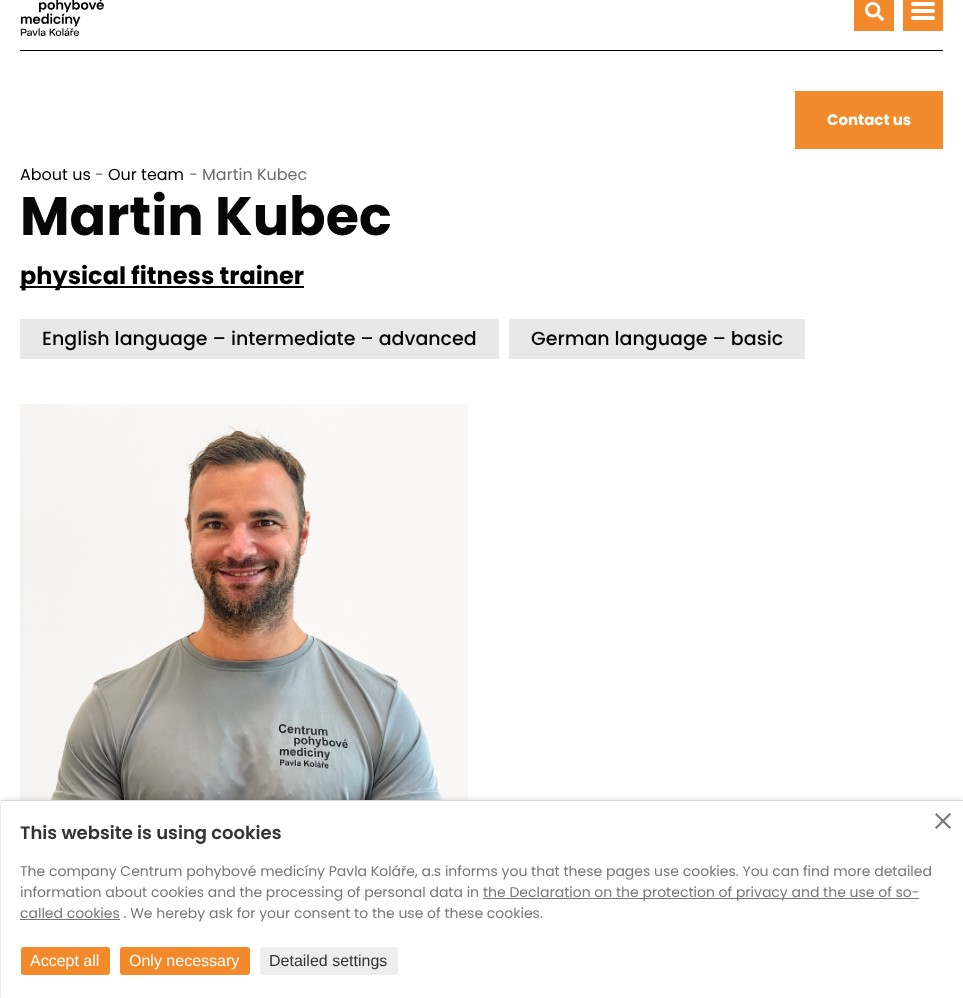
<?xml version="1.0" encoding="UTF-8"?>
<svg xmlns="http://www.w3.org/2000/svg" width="963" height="998">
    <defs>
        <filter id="blur1" x="-50%" y="-200%" width="200%" height="500%"><feGaussianBlur stdDeviation="5"/></filter>
    </defs>
    <rect width="100%" height="100%" fill="#FFFFFF"/>
    <rect x="20" y="50" width="923" height="1" fill="#000000"/>
    <image x="20" y="0" width="84" height="36" href="img_01.png"/>
    <rect x="854" y="0" width="40" height="31" fill="#F2892B"/>
    <image x="865" y="2" width="19" height="19" href="img_02.png"/>
    <rect x="903" y="0" width="40" height="31" fill="#F2892B"/>
    <rect x="911" y="2" width="24" height="4" rx="2" fill="#FFFFFF"/>
    <rect x="911" y="9" width="24" height="4" rx="2" fill="#FFFFFF"/>
    <rect x="911" y="16" width="24" height="4" rx="2" fill="#FFFFFF"/>
    <rect x="795" y="91" width="148" height="58" fill="#F2892B"/>
    <text x="827" y="125" font-family="Poppins" font-size="15" font-weight="700" fill="#FFFFFF">Contact us</text>
    <text x="20" y="180" font-family="Poppins" font-size="16" fill="#000000">About us</text>
    <text x="95" y="180" font-family="Poppins" font-size="16" fill="#6C6C6C">-</text>
    <text x="108" y="180" font-family="Poppins" font-size="16" fill="#000000">Our team</text>
    <text x="189" y="180" font-family="Poppins" font-size="16" fill="#6C6C6C">- Martin Kubec</text>
    <text x="20" y="235" font-family="Poppins" font-size="54" font-weight="700" fill="#060606">Martin Kubec</text>
    <rect x="20" y="286" width="284" height="2" fill="#000000"/>
    <text x="20" y="284" font-family="Poppins" font-size="24" font-weight="700" fill="#000000">physical fitness trainer</text>
    <rect x="20" y="319" width="479" height="40" fill="#E8E8E8"/>
    <text x="42" y="345" font-family="Poppins" font-size="19" font-weight="500" fill="#060606">English language – intermediate – advanced</text>
    <rect x="509" y="319" width="296" height="40" fill="#E8E8E8"/>
    <text x="531" y="345" font-family="Poppins" font-size="19" font-weight="500" fill="#060606">German language – basic</text>
    <image x="20" y="404" width="448" height="396" href="img_03.png"/>
    <rect x="1" y="802" width="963" height="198" fill="#000000" fill-opacity="0.2" filter="url(#blur1)"/>
    <rect x="1" y="801" width="962" height="197" fill="#FFFFFF"/>
    <rect x="1" y="800" width="962" height="1" fill="#D9D9D9"/>
    <text x="20" y="839" font-family="Poppins" font-size="18" font-weight="600" fill="#333333">This website is using cookies</text>
    <text font-family="Poppins" font-size="14" fill="#777777">
        <tspan x="20" y="876">The company Centrum pohybové medicíny Pavla Koláře, a.s informs you that these pages use cookies. You can find more detailed</tspan>
        <tspan x="20" y="897">information about cookies and the processing of personal data in</tspan>
    </text>
    <rect x="483" y="898" width="436" height="1" fill="#777777"/>
    <text x="483" y="897" font-family="Poppins" font-size="14" fill="#777777">the Declaration on the protection of privacy and the use of so-</text>
    <rect x="20" y="919" width="100" height="1" fill="#777777"/>
    <text x="20" y="918" font-family="Poppins" font-size="14" fill="#777777">called cookies . We hereby ask for your consent to the use of these cookies.</text>
    <path d="M 936.5 813 L 951 827.5 L 949.5 829 L 935 814.5 Z" fill="#777777"/>
    <path d="M 935 827.5 L 949.5 813 L 951 814.5 L 936.5 829 Z" fill="#777777"/>
    <rect x="21" y="947" width="89" height="28" rx="3" fill="#F2892B"/>
    <text x="30" y="966" font-family="Liberation Sans" font-size="16" fill="#FFFFFF">Accept all</text>
    <rect x="120" y="947" width="130" height="28" rx="3" fill="#F2892B"/>
    <text x="129" y="966" font-family="Liberation Sans" font-size="16" fill="#FFFFFF">Only necessary</text>
    <rect x="260" y="947" width="138" height="28" rx="3" fill="#EEEEEE"/>
    <text x="269" y="966" font-family="Liberation Sans" font-size="16" fill="#333333">Detailed settings</text>
</svg>
